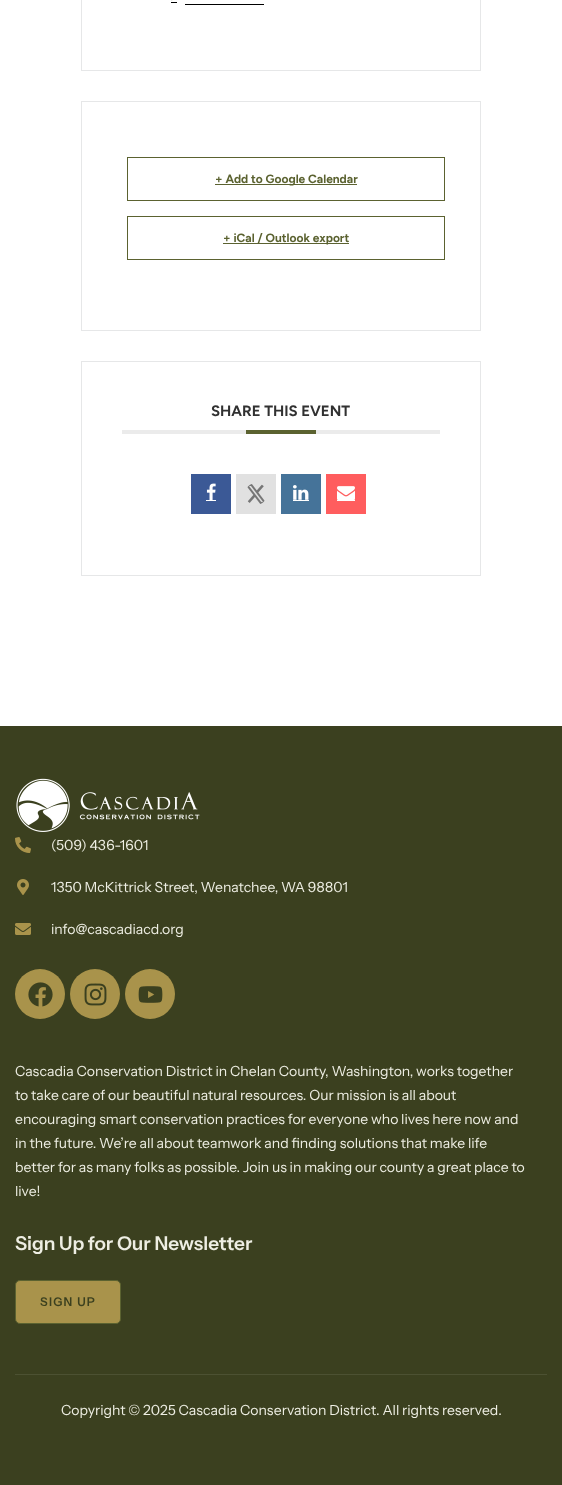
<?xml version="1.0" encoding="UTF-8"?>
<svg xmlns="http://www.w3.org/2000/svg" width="562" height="1485">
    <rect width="100%" height="100%" fill="#FFFFFF"/>
    <rect x="81.5" y="-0.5" width="399" height="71" fill="none" stroke="#E6E7E8"/>
    <image x="171" y="0" width="2" height="1" href="img_01.png"/>
    <rect x="171" y="2" width="6" height="1" fill="#000000"/>
    <rect x="185" y="4" width="79" height="1" fill="#000000"/>
    <rect x="81.5" y="101.5" width="399" height="229" fill="none" stroke="#E6E7E8"/>
    <rect x="127.5" y="157.5" width="317" height="43" fill="none" stroke="#5B6230"/>
    <rect x="215" y="184" width="142" height="1" fill="#5B6230"/>
    <text x="215" y="183" font-family="Figtree" font-size="12" font-weight="700" fill="#5B6230">+ Add to Google Calendar</text>
    <rect x="127.5" y="216.5" width="317" height="43" fill="none" stroke="#5B6230"/>
    <rect x="223" y="243" width="126" height="1" fill="#5B6230"/>
    <text x="223" y="242" font-family="Figtree" font-size="12" font-weight="700" fill="#5B6230">+ iCal / Outlook export</text>
    <rect x="81.5" y="361.5" width="399" height="214" fill="none" stroke="#E6E7E8"/>
    <rect x="122" y="430" width="318" height="4" fill="#EBEBEB"/>
    <text x="211" y="416" font-family="Figtree" font-size="15" font-weight="700" fill="#313131">SHARE THIS EVENT</text>
    <rect x="246" y="430" width="70" height="4" fill="#5B6230"/>
    <rect x="191" y="474" width="40" height="40" fill="#3B5996"/>
    <image x="206" y="483" width="10" height="17" href="img_02.png"/>
    <rect x="206" y="500" width="10" height="1" fill="#FFFFFF"/>
    <rect x="236" y="474" width="40" height="40" fill="#E1E1E1"/>
    <image x="247" y="484" width="18" height="20" href="img_03.png"/>
    <rect x="281" y="474" width="40" height="40" fill="#457399"/>
    <image x="293" y="485" width="16" height="15" href="img_04.png"/>
    <rect x="293" y="500" width="16" height="1" fill="#FFFFFF"/>
    <rect x="326" y="474" width="40" height="40" fill="#FF5D5E"/>
    <image x="337" y="486" width="18" height="14" href="img_05.png"/>
    <rect x="337" y="500" width="18" height="1" fill="#FFFFFF"/>
    <rect x="0" y="726" width="562" height="759" fill="#3B401F"/>
    <rect x="15" y="1374" width="532" height="1" fill="#4C5132"/>
    <image x="16" y="778" width="184" height="54" href="img_06.png"/>
    <image x="15" y="837" width="16" height="16" href="img_07.png"/>
    <text x="51" y="850" font-family="Instrument Sans" font-size="14" fill="#EEEEE3">(509) 436-1601</text>
    <image x="17" y="879" width="12" height="16" href="img_08.png"/>
    <text x="51" y="892" font-family="Instrument Sans" font-size="14" fill="#EEEEE3">1350 McKittrick Street, Wenatchee, WA 98801</text>
    <image x="15" y="923" width="16" height="12" href="img_09.png"/>
    <text x="51" y="934" font-family="Instrument Sans" font-size="14" fill="#EEEEE3">info@cascadiacd.org</text>
    <circle cx="40" cy="994" r="25" fill="#A9934B"/>
    <image x="28" y="982" width="25" height="25" href="img_10.png"/>
    <circle cx="95" cy="994" r="25" fill="#A9934B"/>
    <image x="84" y="983" width="23" height="23" href="img_11.png"/>
    <circle cx="150" cy="994" r="25" fill="#A9934B"/>
    <image x="138" y="986" width="25" height="17" href="img_12.png"/>
    <text font-family="Instrument Sans" font-size="14" fill="#EEEEE3">
        <tspan x="15" y="1076">Cascadia Conservation District in Chelan County, Washington, works together</tspan>
        <tspan x="15" y="1100">to take care of our beautiful natural resources. Our mission is all about</tspan>
        <tspan x="15" y="1124">encouraging smart conservation practices for everyone who lives here now and</tspan>
        <tspan x="15" y="1148">in the future. We’re all about teamwork and finding solutions that make life</tspan>
        <tspan x="15" y="1172">better for as many folks as possible. Join us in making our county a great place to</tspan>
        <tspan x="15" y="1196">live!</tspan>
    </text>
    <text x="15" y="1250" font-family="Instrument Sans" font-size="19" font-weight="600" fill="#EEEEE3">Sign Up for Our Newsletter</text>
    <rect x="15.5" y="1280.5" width="105" height="43" rx="4.5" fill="#A9934B" stroke="#5B6230"/>
    <text x="40" y="1306" font-family="Instrument Sans" font-size="12" font-weight="600" letter-spacing="1.25" fill="#3B401F">SIGN UP</text>
    <text x="61" y="1415" font-family="Instrument Sans" font-size="14" fill="#EEEEE3">Copyright © 2025 Cascadia Conservation District. All rights reserved.</text>
</svg>
